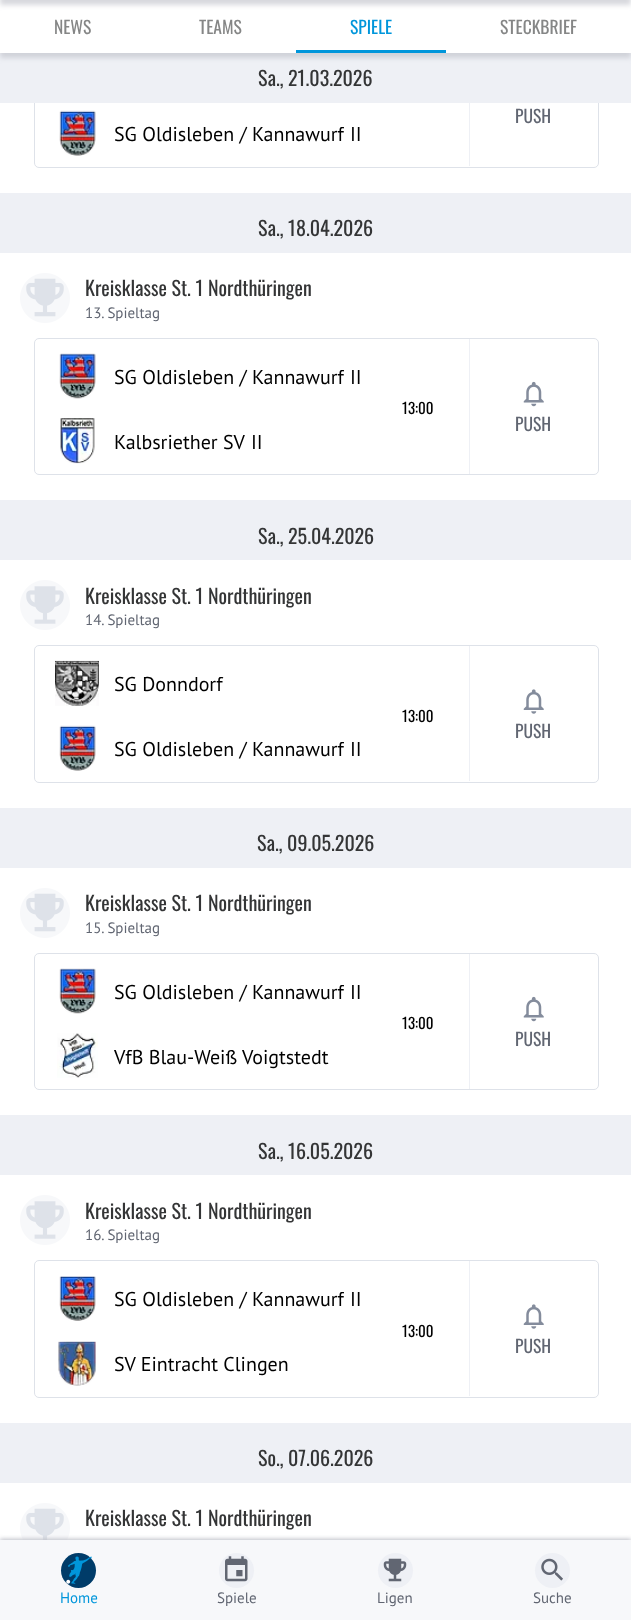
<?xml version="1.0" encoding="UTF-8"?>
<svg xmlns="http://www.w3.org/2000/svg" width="631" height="1620">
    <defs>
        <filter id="blur1" x="-50%" y="-200%" width="200%" height="500%"><feGaussianBlur stdDeviation="2.5"/></filter>
        <clipPath id="clip1"><rect x="115" y="121" width="229" height="25"/></clipPath>
        <clipPath id="clip2"><rect x="115" y="364" width="229" height="25"/></clipPath>
        <clipPath id="clip3"><rect x="115" y="736" width="229" height="25"/></clipPath>
        <clipPath id="clip4"><rect x="115" y="979" width="229" height="25"/></clipPath>
        <clipPath id="clip5"><rect x="115" y="1286" width="229" height="25"/></clipPath>
        <filter id="blur2" x="-50%" y="-200%" width="200%" height="500%"><feGaussianBlur stdDeviation="2"/></filter>
    </defs>
    <rect width="100%" height="100%" fill="#EEF0F5"/>
    <rect x="0" y="103" width="631" height="90" fill="#FFFFFF"/>
    <rect x="34.5" y="30.5" width="564" height="137" rx="4.5" fill="none" stroke="#DEE2E9"/>
    <rect x="34" y="53" width="565" height="50" fill="#EEF0F5"/>
    <rect x="0" y="5" width="631" height="53" fill="#BCBEC6" fill-opacity="0.6" filter="url(#blur1)"/>
    <rect x="0" y="0" width="631" height="53" fill="#FFFFFF"/>
    <rect x="0" y="-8" width="631" height="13" fill="#BCBEC6" fill-opacity="0.6" filter="url(#blur1)"/>
    <text x="54" y="34" font-family="Oswald" font-size="17.5" fill="#858686">NEWS</text>
    <text x="199" y="34" font-family="Oswald" font-size="17.5" fill="#858686">TEAMS</text>
    <text x="350" y="34" font-family="Oswald" font-size="17.5" fill="#0096DB">SPIELE</text>
    <text x="500" y="34" font-family="Oswald" font-size="17.5" fill="#858686">STECKBRIEF</text>
    <rect x="296" y="50" width="150" height="3" fill="#0096DB"/>
    <text x="258" y="86" font-family="Oswald" font-size="20" fill="#343536">Sa., 21.03.2026</text>
    <rect x="469" y="103" width="1" height="63" fill="#EEF0F5"/>
    <text x="515" y="123" font-family="Oswald" font-size="17.5" fill="#616672">PUSH</text>
    <image x="59" y="110" width="37" height="46" href="img_01.png"/>
    <g clip-path="url(#clip1)">
        <text x="114" y="141" font-family="PT Sans" font-size="20" fill="#000000">SG Oldisleben / Kannawurf</text>
    </g>
    <text x="350" y="141" font-family="PT Sans" font-size="20" fill="#000000">II</text>
    <text x="258" y="236" font-family="Oswald" font-size="20" fill="#343536">Sa., 18.04.2026</text>
    <rect x="0" y="253" width="631" height="247" fill="#FFFFFF"/>
    <image x="20" y="273" width="50" height="50" href="img_02.png"/>
    <text x="85" y="296" font-family="Oswald" font-size="20" fill="#343536">Kreisklasse St. 1 Nordthüringen</text>
    <text x="85" y="318" font-family="PT Sans" font-size="15" fill="#616672">13. Spieltag</text>
    <rect x="34.5" y="338.5" width="564" height="136" rx="4.5" fill="none" stroke="#DEE2E9"/>
    <image x="59" y="353" width="37" height="46" href="img_03.png"/>
    <g clip-path="url(#clip2)">
        <text x="114" y="384" font-family="PT Sans" font-size="20" fill="#000000">SG Oldisleben / Kannawurf</text>
    </g>
    <text x="350" y="384" font-family="PT Sans" font-size="20" fill="#000000">II</text>
    <image x="60" y="418" width="35" height="46" href="img_04.png"/>
    <text x="114" y="449" font-family="PT Sans" font-size="20" fill="#000000">Kalbsriether SV</text>
    <text x="251" y="449" font-family="PT Sans" font-size="20" fill="#000000">II</text>
    <text x="402" y="414" font-family="Oswald" font-size="15" fill="#000000">13:00</text>
    <rect x="469" y="339" width="1" height="135" fill="#EEF0F5"/>
    <image x="523" y="381" width="21" height="26" href="img_05.png"/>
    <text x="515" y="431" font-family="Oswald" font-size="17.5" fill="#616672">PUSH</text>
    <text x="258" y="544" font-family="Oswald" font-size="20" fill="#343536">Sa., 25.04.2026</text>
    <rect x="0" y="560" width="631" height="248" fill="#FFFFFF"/>
    <image x="20" y="580" width="50" height="50" href="img_06.png"/>
    <text x="85" y="604" font-family="Oswald" font-size="20" fill="#343536">Kreisklasse St. 1 Nordthüringen</text>
    <text x="85" y="625" font-family="PT Sans" font-size="15" fill="#616672">14. Spieltag</text>
    <rect x="34.5" y="645.5" width="564" height="137" rx="4.5" fill="none" stroke="#DEE2E9"/>
    <image x="55" y="660" width="44" height="46" href="img_07.png"/>
    <text x="114" y="691" font-family="PT Sans" font-size="20" fill="#000000">SG Donndorf</text>
    <image x="59" y="725" width="37" height="46" href="img_01.png"/>
    <g clip-path="url(#clip3)">
        <text x="114" y="756" font-family="PT Sans" font-size="20" fill="#000000">SG Oldisleben / Kannawurf</text>
    </g>
    <text x="350" y="756" font-family="PT Sans" font-size="20" fill="#000000">II</text>
    <text x="402" y="722" font-family="Oswald" font-size="15" fill="#000000">13:00</text>
    <rect x="469" y="646" width="1" height="135" fill="#EEF0F5"/>
    <image x="523" y="689" width="21" height="25" href="img_08.png"/>
    <text x="515" y="738" font-family="Oswald" font-size="17.5" fill="#616672">PUSH</text>
    <text x="257" y="851" font-family="Oswald" font-size="20" fill="#343536">Sa., 09.05.2026</text>
    <rect x="0" y="868" width="631" height="247" fill="#FFFFFF"/>
    <image x="20" y="888" width="50" height="50" href="img_02.png"/>
    <text x="85" y="911" font-family="Oswald" font-size="20" fill="#343536">Kreisklasse St. 1 Nordthüringen</text>
    <text x="85" y="933" font-family="PT Sans" font-size="15" fill="#616672">15. Spieltag</text>
    <rect x="34.5" y="953.5" width="564" height="136" rx="4.5" fill="none" stroke="#DEE2E9"/>
    <image x="59" y="968" width="37" height="46" href="img_03.png"/>
    <g clip-path="url(#clip4)">
        <text x="114" y="999" font-family="PT Sans" font-size="20" fill="#000000">SG Oldisleben / Kannawurf</text>
    </g>
    <text x="350" y="999" font-family="PT Sans" font-size="20" fill="#000000">II</text>
    <image x="57" y="1033" width="41" height="45" href="img_09.png"/>
    <text x="114" y="1064" font-family="PT Sans" font-size="20" fill="#000000">VfB Blau-Weiß Voigtstedt</text>
    <text x="402" y="1029" font-family="Oswald" font-size="15" fill="#000000">13:00</text>
    <rect x="469" y="954" width="1" height="135" fill="#EEF0F5"/>
    <image x="523" y="996" width="21" height="26" href="img_05.png"/>
    <text x="515" y="1046" font-family="Oswald" font-size="17.5" fill="#616672">PUSH</text>
    <text x="258" y="1159" font-family="Oswald" font-size="20" fill="#343536">Sa., 16.05.2026</text>
    <rect x="0" y="1175" width="631" height="248" fill="#FFFFFF"/>
    <image x="20" y="1195" width="50" height="50" href="img_06.png"/>
    <text x="85" y="1219" font-family="Oswald" font-size="20" fill="#343536">Kreisklasse St. 1 Nordthüringen</text>
    <text x="85" y="1240" font-family="PT Sans" font-size="15" fill="#616672">16. Spieltag</text>
    <rect x="34.5" y="1260.5" width="564" height="137" rx="4.5" fill="none" stroke="#DEE2E9"/>
    <image x="59" y="1276" width="37" height="45" href="img_10.png"/>
    <g clip-path="url(#clip5)">
        <text x="114" y="1306" font-family="PT Sans" font-size="20" fill="#000000">SG Oldisleben / Kannawurf</text>
    </g>
    <text x="350" y="1306" font-family="PT Sans" font-size="20" fill="#000000">II</text>
    <image x="58" y="1341" width="38" height="45" href="img_11.png"/>
    <text x="114" y="1371" font-family="PT Sans" font-size="20" fill="#000000">SV Eintracht Clingen</text>
    <text x="402" y="1337" font-family="Oswald" font-size="15" fill="#000000">13:00</text>
    <rect x="469" y="1261" width="1" height="135" fill="#EEF0F5"/>
    <image x="523" y="1304" width="21" height="25" href="img_08.png"/>
    <text x="515" y="1353" font-family="Oswald" font-size="17.5" fill="#616672">PUSH</text>
    <text x="258" y="1466" font-family="Oswald" font-size="20" fill="#343536">So., 07.06.2026</text>
    <rect x="0" y="1483" width="631" height="57" fill="#FFFFFF"/>
    <image x="20" y="1503" width="50" height="37" href="img_12.png"/>
    <text x="85" y="1526" font-family="Oswald" font-size="20" fill="#343536">Kreisklasse St. 1 Nordthüringen</text>
    <rect x="0" y="1539" width="631" height="80" fill="#BCBEC6" filter="url(#blur2)"/>
    <rect x="0" y="1540" width="631" height="80" fill="#F7F8FA"/>
    <circle cx="78.5" cy="1570.5" r="17.5" fill="#003C69"/>
    <image x="66" y="1556" width="26" height="28" href="img_13.png"/>
    <text x="60" y="1603" font-family="PT Sans" font-size="15" fill="#0096DB">Home</text>
    <circle cx="236.5" cy="1570.5" r="17.5" fill="#EEF0F5"/>
    <image x="225" y="1556" width="23" height="26" href="img_14.png"/>
    <text x="217" y="1603" font-family="PT Sans" font-size="15" fill="#616672">Spiele</text>
    <circle cx="395.5" cy="1570.5" r="17.5" fill="#EEF0F5"/>
    <image x="383" y="1558" width="24" height="24" href="img_15.png"/>
    <text x="377" y="1603" font-family="PT Sans" font-size="15" fill="#616672">Ligen</text>
    <circle cx="552.5" cy="1570.5" r="17.5" fill="#EEF0F5"/>
    <image x="541" y="1558" width="22" height="23" href="img_16.png"/>
    <text x="533" y="1603" font-family="PT Sans" font-size="15" fill="#616672">Suche</text>
</svg>
